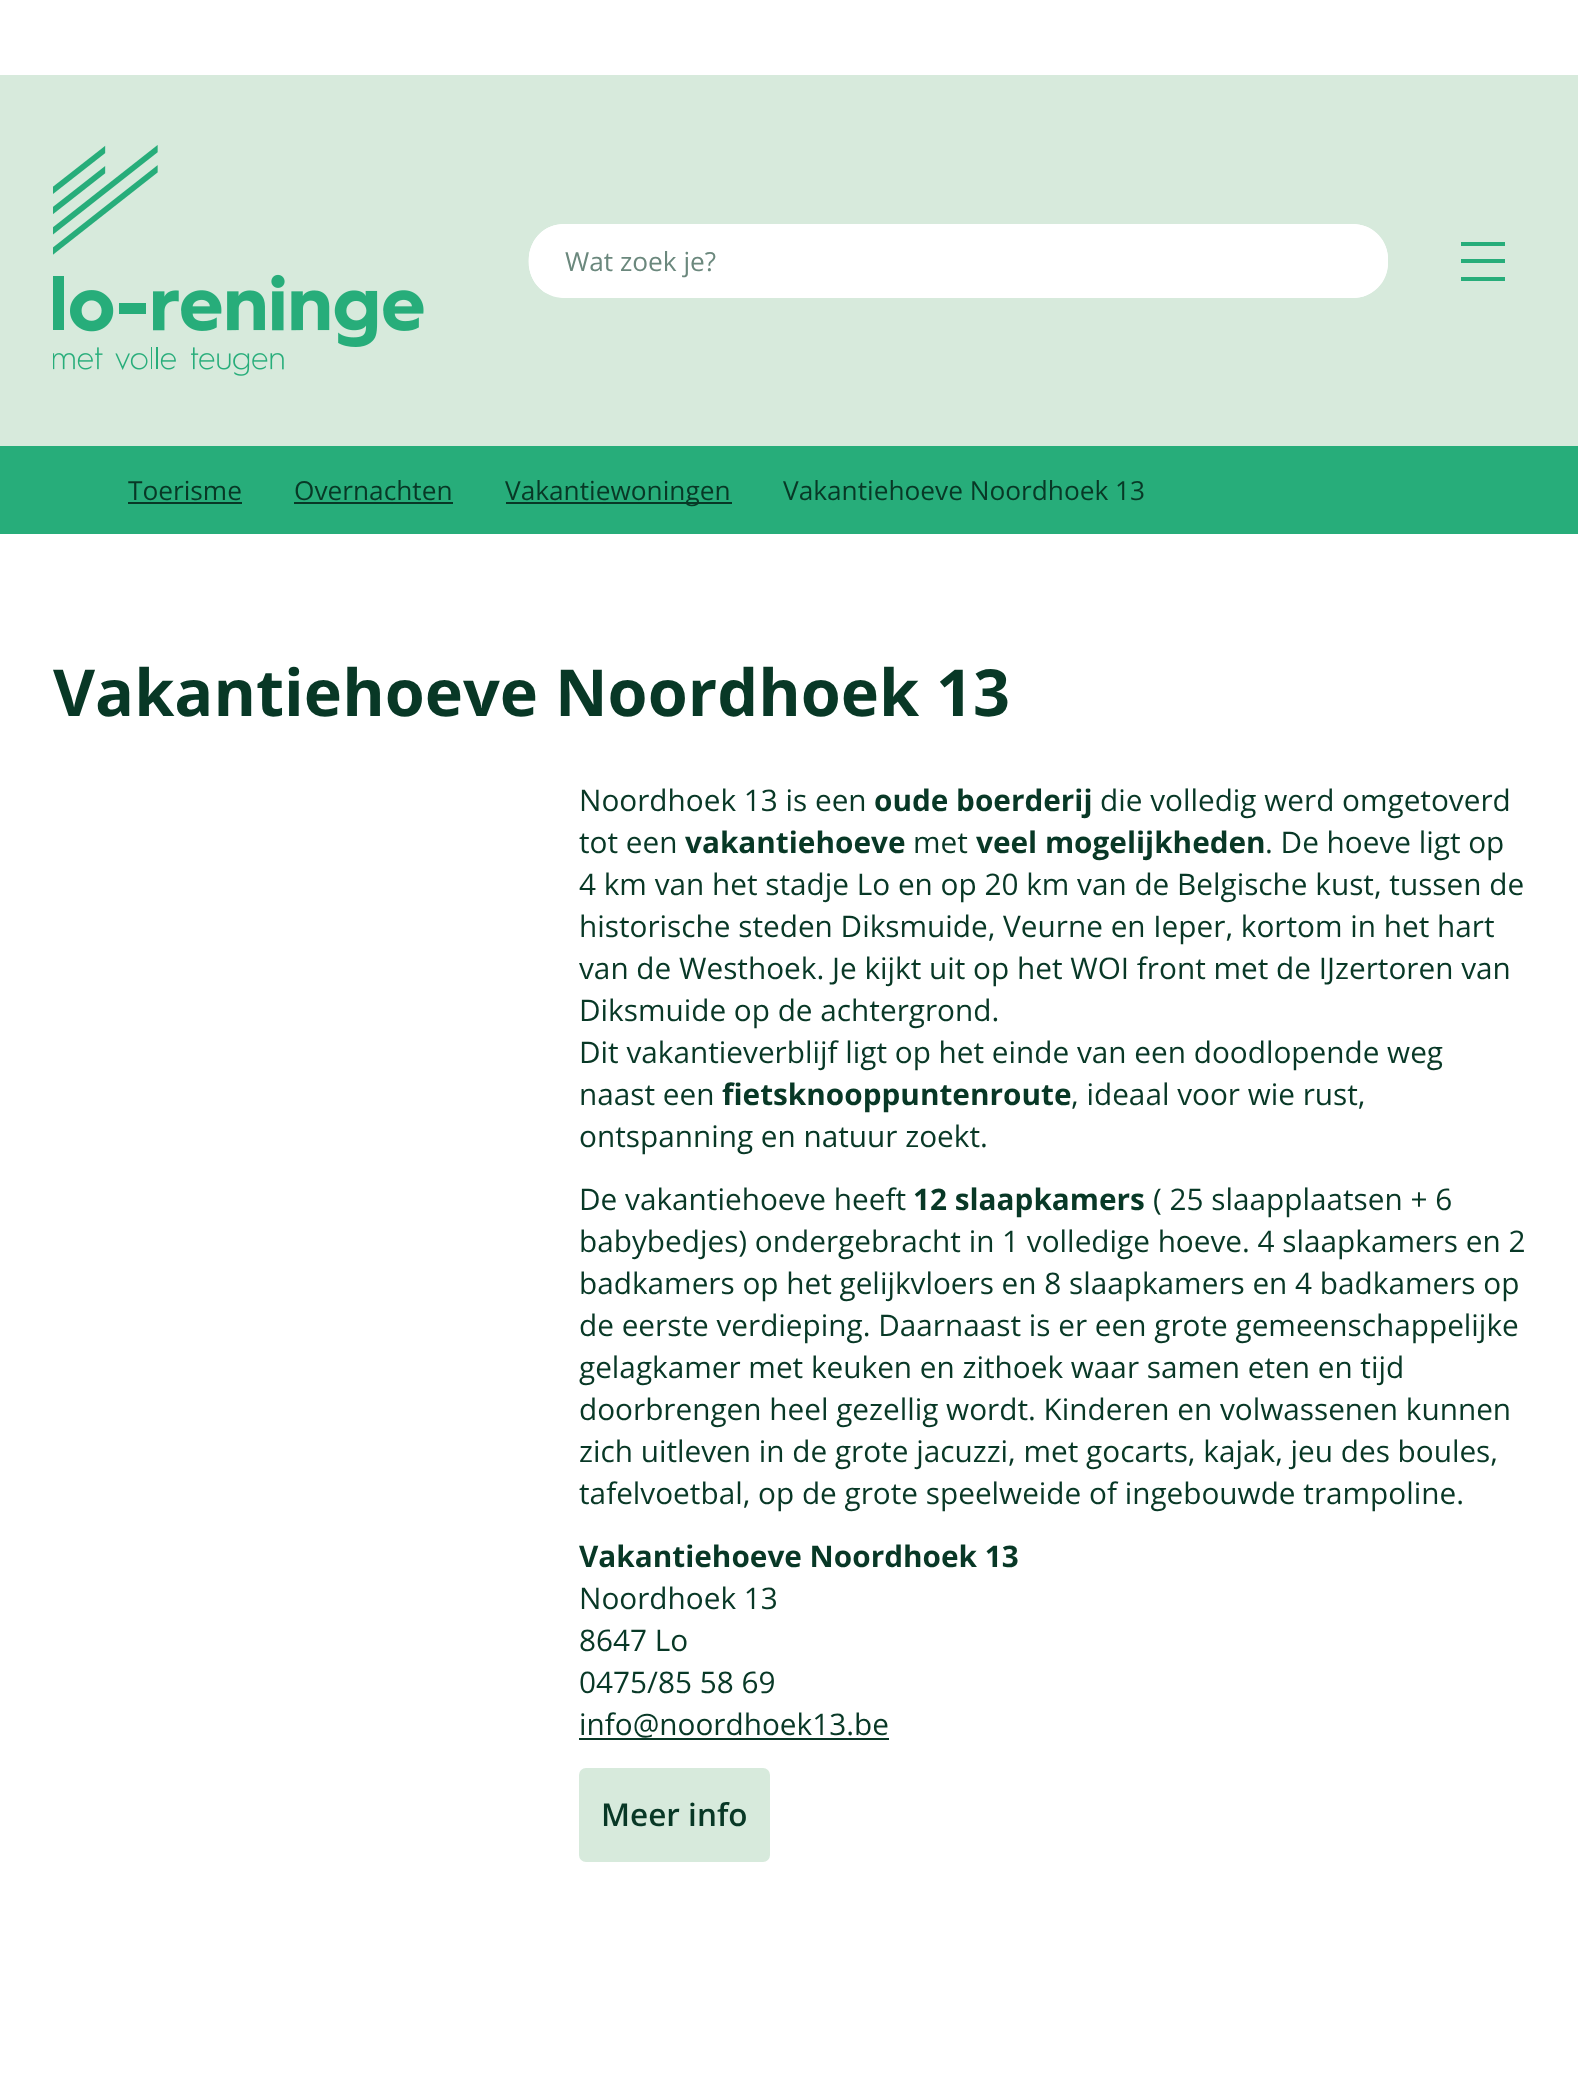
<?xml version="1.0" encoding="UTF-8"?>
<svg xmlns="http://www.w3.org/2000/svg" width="1578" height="2096">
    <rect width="100%" height="100%" fill="#FFFFFF"/>
    <rect x="0" y="75" width="1578" height="371" fill="#D7EADC"/>
    <image x="53" y="145" width="371" height="231" href="img_01.png"/>
    <path d="M 564 224 H 1292 V 298 H 564 C 544.5 298 529 282.5 529 263 V 259 C 529 239.5 544.5 224 564 224 Z" fill="#FFFFFF"/>
    <path d="M 564 224 H 1292 V 298 H 564 C 557 297 550 295 544 292 C 516 272 528 224 564 224 Z M 564 226 H 1292 V 296 H 564 C 545 296 530 281 530 262 V 259 C 530 241 545 226 564 226 Z" fill="#FFFFFF" fill-rule="evenodd"/>
    <text x="565" y="271" font-family="Open Sans" font-size="26.25" fill="#6B887D">Wat zoek je?</text>
    <path d="M 1292 224 H 1353 C 1372.5 224 1388 239.5 1388 259 V 263 C 1388 282.5 1372.5 298 1353 298 H 1292 Z" fill="#FFFFFF"/>
    <path d="M 1292 224 H 1353 C 1372 224 1388 240 1388 259 V 262 C 1388 282 1372 298 1353 298 H 1292 Z M 1292 226 H 1353 C 1371 226 1386 241 1386 259 V 262 C 1386 281 1371 296 1353 296 H 1292 Z" fill="#FFFFFF" fill-rule="evenodd"/>
    <rect x="1461" y="259" width="44" height="4" fill="#27AD7A"/>
    <rect x="1461" y="242" width="44" height="4" fill="#27AD7A"/>
    <rect x="1461" y="277" width="44" height="4" fill="#27AD7A"/>
    <rect x="0" y="446" width="1578" height="88" fill="#27AD7A"/>
    <text x="128" y="500" font-family="Open Sans" font-size="26.25" fill="#083826">Toerisme</text>
    <rect x="128" y="502" width="114" height="2" fill="#083826"/>
    <text x="294" y="500" font-family="Open Sans" font-size="26.25" fill="#083826">Overnachten</text>
    <rect x="294" y="502" width="159" height="2" fill="#083826"/>
    <rect x="506" y="502" width="226" height="2" fill="#083826"/>
    <text x="505" y="500" font-family="Open Sans" font-size="26.25" fill="#083826">Vakantiewoningen</text>
    <text x="783" y="500" font-family="Open Sans" font-size="26.25" fill="#083826">Vakantiehoeve Noordhoek 13</text>
    <text x="53" y="716" font-family="Open Sans" font-size="64.75" font-weight="700" fill="#083826">Vakantiehoeve Noordhoek 13</text>
    <text x="579" y="811" font-family="Open Sans" font-size="29.75" fill="#083826">Noordhoek 13 is een</text>
    <text x="874" y="811" font-family="Open Sans" font-size="29.75" font-weight="700" fill="#083826">oude boerderij</text>
    <text x="1100" y="811" font-family="Open Sans" font-size="29.75" fill="#083826">die volledig werd omgetoverd</text>
    <text x="579" y="853" font-family="Open Sans" font-size="29.75" fill="#083826">tot een</text>
    <text x="685" y="853" font-family="Open Sans" font-size="29.75" font-weight="700" fill="#083826">vakantiehoeve</text>
    <text x="913" y="853" font-family="Open Sans" font-size="29.75" fill="#083826">met</text>
    <text x="976" y="853" font-family="Open Sans" font-size="29.75" font-weight="700" fill="#083826">veel mogelijkheden</text>
    <text x="1265" y="853" font-family="Open Sans" font-size="29.75" fill="#083826">. De hoeve ligt op</text>
    <text font-family="Open Sans" font-size="29.75" fill="#083826">
        <tspan x="579" y="895">4 km van het stadje Lo en op 20 km van de Belgische kust, tussen de</tspan>
        <tspan x="579" y="937">historische steden Diksmuide, Veurne en Ieper, kortom in het hart</tspan>
        <tspan x="579" y="979">van de Westhoek. Je kijkt uit op het WOI front met de IJzertoren van</tspan>
        <tspan x="579" y="1021">Diksmuide op de achtergrond.</tspan>
        <tspan x="579" y="1063">Dit vakantieverblijf ligt op het einde van een doodlopende weg</tspan>
        <tspan x="579" y="1105">naast een</tspan>
    </text>
    <text x="722" y="1105" font-family="Open Sans" font-size="29.75" font-weight="700" fill="#083826">fietsknooppuntenroute</text>
    <text x="1071" y="1105" font-family="Open Sans" font-size="29.75" fill="#083826">, ideaal voor wie rust,</text>
    <text x="579" y="1147" font-family="Open Sans" font-size="29.75" fill="#083826">ontspanning en natuur zoekt.</text>
    <text x="579" y="1210" font-family="Open Sans" font-size="29.75" fill="#083826">De vakantiehoeve heeft</text>
    <text x="913" y="1210" font-family="Open Sans" font-size="29.75" font-weight="700" fill="#083826">12 slaapkamers</text>
    <text x="1153" y="1210" font-family="Open Sans" font-size="29.75" fill="#083826">( 25 slaapplaatsen + 6</text>
    <text font-family="Open Sans" font-size="29.75" fill="#083826">
        <tspan x="579" y="1252">babybedjes) ondergebracht in 1 volledige hoeve. 4 slaapkamers en 2</tspan>
        <tspan x="579" y="1294">badkamers op het gelijkvloers en 8 slaapkamers en 4 badkamers op</tspan>
        <tspan x="579" y="1336">de eerste verdieping. Daarnaast is er een grote gemeenschappelijke</tspan>
        <tspan x="579" y="1378">gelagkamer met keuken en zithoek waar samen eten en tijd</tspan>
        <tspan x="579" y="1420">doorbrengen heel gezellig wordt. Kinderen en volwassenen kunnen</tspan>
        <tspan x="579" y="1462">zich uitleven in de grote jacuzzi, met gocarts, kajak, jeu des boules,</tspan>
        <tspan x="579" y="1504">tafelvoetbal, op de grote speelweide of ingebouwde trampoline.</tspan>
    </text>
    <text x="579" y="1567" font-family="Open Sans" font-size="29.75" font-weight="700" fill="#083826">Vakantiehoeve Noordhoek 13</text>
    <text font-family="Open Sans" font-size="29.75" fill="#083826">
        <tspan x="579" y="1609">Noordhoek 13</tspan>
        <tspan x="579" y="1651">8647 Lo</tspan>
        <tspan x="579" y="1693">0475/85 58 69</tspan>
        <tspan x="579" y="1735">info@noordhoek13.be</tspan>
    </text>
    <rect x="579" y="1738" width="310" height="2" fill="#083826"/>
    <rect x="580" y="1769" width="189" height="92" rx="6" fill="#D7EADC" stroke="#D7EADC" stroke-width="2"/>
    <text x="601" y="1826" font-family="Open Sans" font-size="31.5" font-weight="600" fill="#083826">Meer info</text>
</svg>
